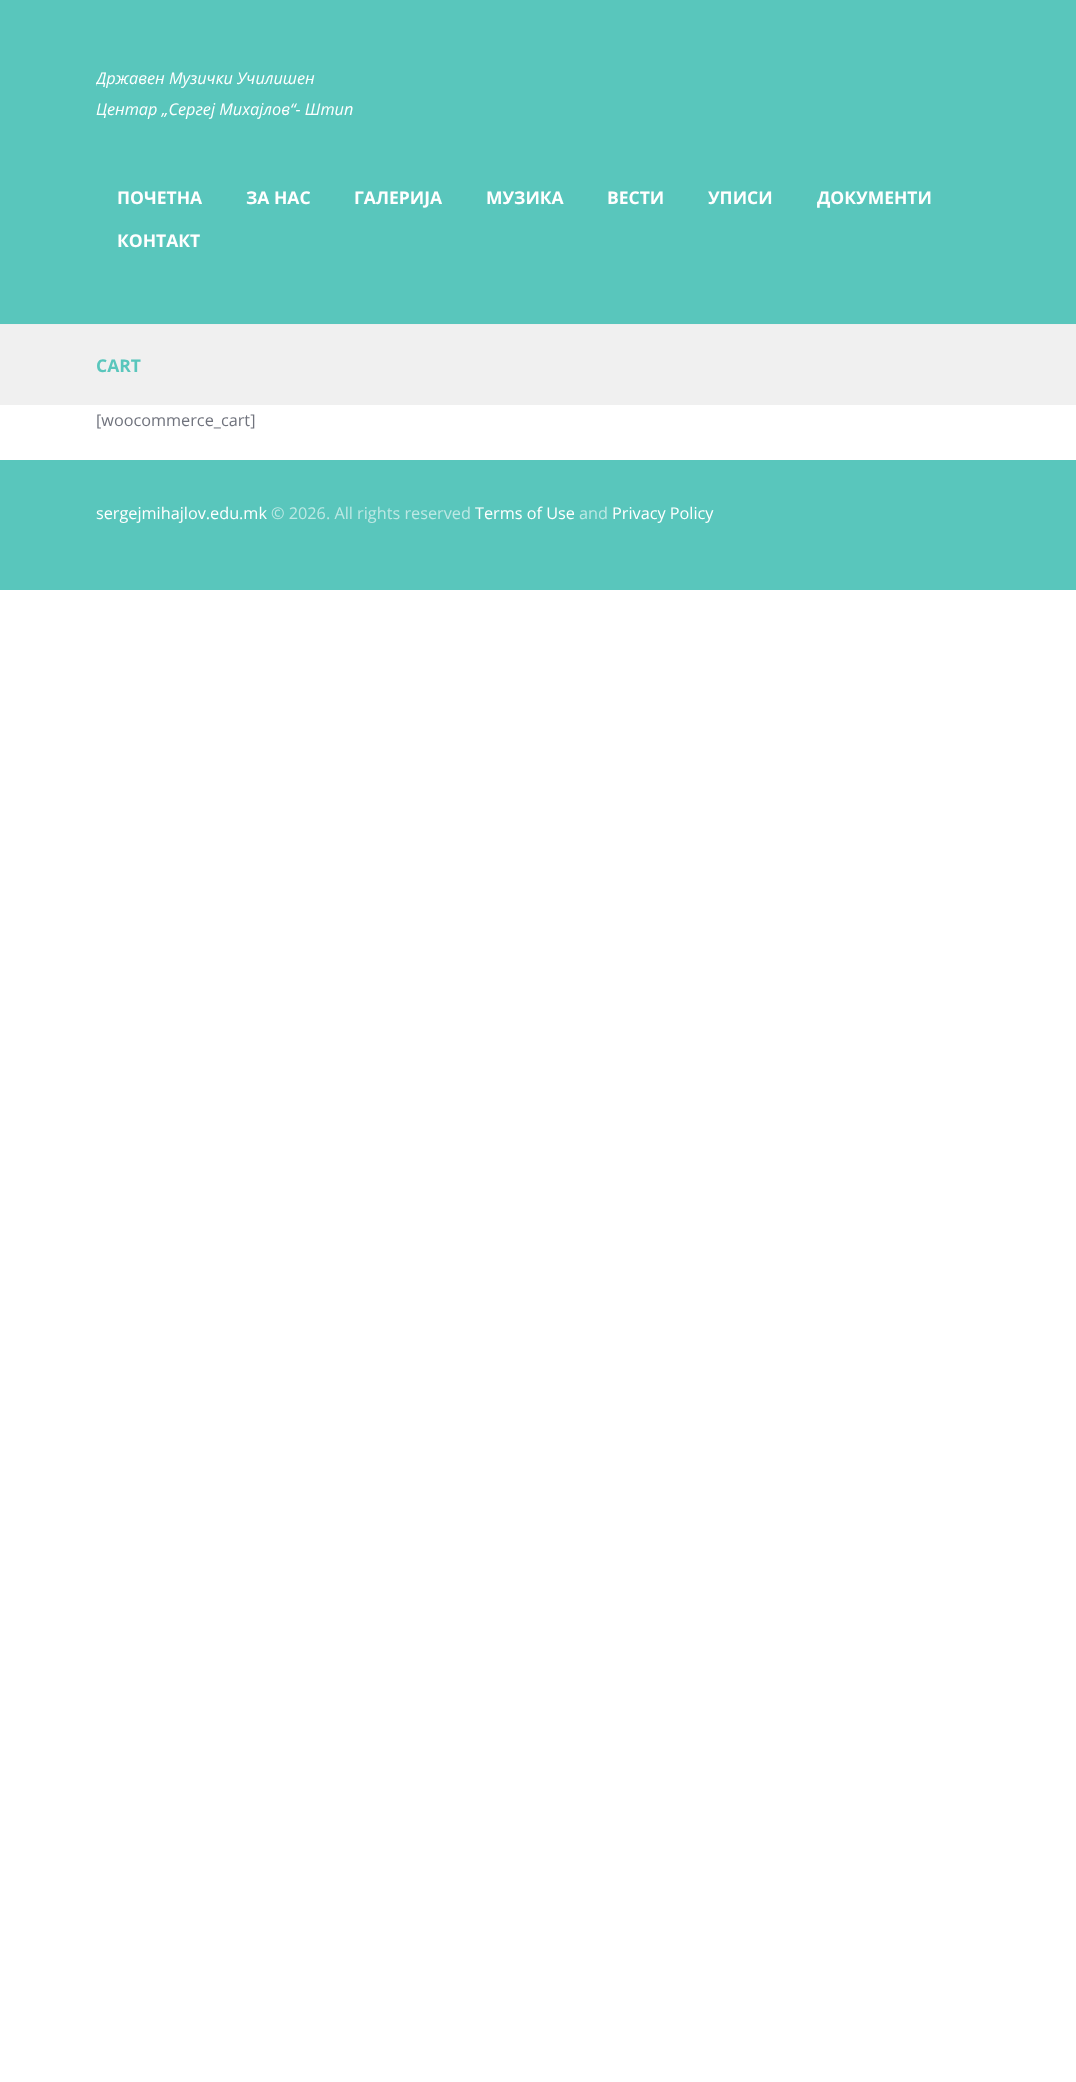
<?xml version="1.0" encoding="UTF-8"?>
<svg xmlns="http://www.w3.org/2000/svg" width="1076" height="2082">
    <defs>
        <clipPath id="clip1"><rect x="96" y="28" width="265" height="97"/></clipPath>
    </defs>
    <rect width="100%" height="100%" fill="#FFFFFF"/>
    <rect x="0" y="0" width="1076" height="324" fill="#59C6BC"/>
    <g clip-path="url(#clip1)">
        <text x="96" y="84" font-family="Open Sans" font-size="16.25" font-style="italic" fill="#FFFFFF">Државен Музички Училишен</text>
    </g>
    <text x="96" y="115" font-family="Open Sans" font-size="16.25" font-style="italic" fill="#FFFFFF">Центар „Сергеј Михајлов“- Штип</text>
    <text x="117" y="204" font-family="Open Sans" font-size="17.5" font-weight="700" fill="#FFFFFF">ПОЧЕТНА</text>
    <text x="246" y="204" font-family="Open Sans" font-size="17.5" font-weight="700" fill="#FFFFFF">ЗА НАС</text>
    <text x="354" y="204" font-family="Open Sans" font-size="17.5" font-weight="700" fill="#FFFFFF">ГАЛЕРИЈА</text>
    <text x="486" y="204" font-family="Open Sans" font-size="17.5" font-weight="700" fill="#FFFFFF">МУЗИКА</text>
    <text x="607" y="204" font-family="Open Sans" font-size="17.5" font-weight="700" fill="#FFFFFF">ВЕСТИ</text>
    <text x="708" y="204" font-family="Open Sans" font-size="17.5" font-weight="700" fill="#FFFFFF">УПИСИ</text>
    <text x="817" y="204" font-family="Open Sans" font-size="17.5" font-weight="700" fill="#FFFFFF">ДОКУМЕНТИ</text>
    <text x="117" y="247" font-family="Open Sans" font-size="17.5" font-weight="700" fill="#FFFFFF">КОНТАКТ</text>
    <rect x="0" y="325" width="1076" height="80" fill="#F0F0F0"/>
    <rect x="0" y="324" width="1076" height="1" fill="#EEEEEE"/>
    <text x="96" y="372" font-family="Open Sans" font-size="17.5" font-weight="700" fill="#59C6BC">CART</text>
    <text x="96" y="426" font-family="Open Sans" font-size="16.25" fill="#70737D">[woocommerce_cart]</text>
    <rect x="0" y="460" width="1076" height="130" fill="#59C6BC"/>
    <text x="96" y="519" font-family="Open Sans" font-size="16.25" fill="#FFFFFF">sergejmihajlov.edu.mk</text>
    <text x="271" y="519" font-family="Open Sans" font-size="16.25" fill="#BDE8E4">© 2026. All rights reserved</text>
    <text x="475" y="519" font-family="Open Sans" font-size="16.25" fill="#FFFFFF">Terms of Use</text>
    <text x="579" y="519" font-family="Open Sans" font-size="16.25" fill="#BDE8E4">and</text>
    <text x="612" y="519" font-family="Open Sans" font-size="16.25" fill="#FFFFFF">Privacy Policy</text>
</svg>
